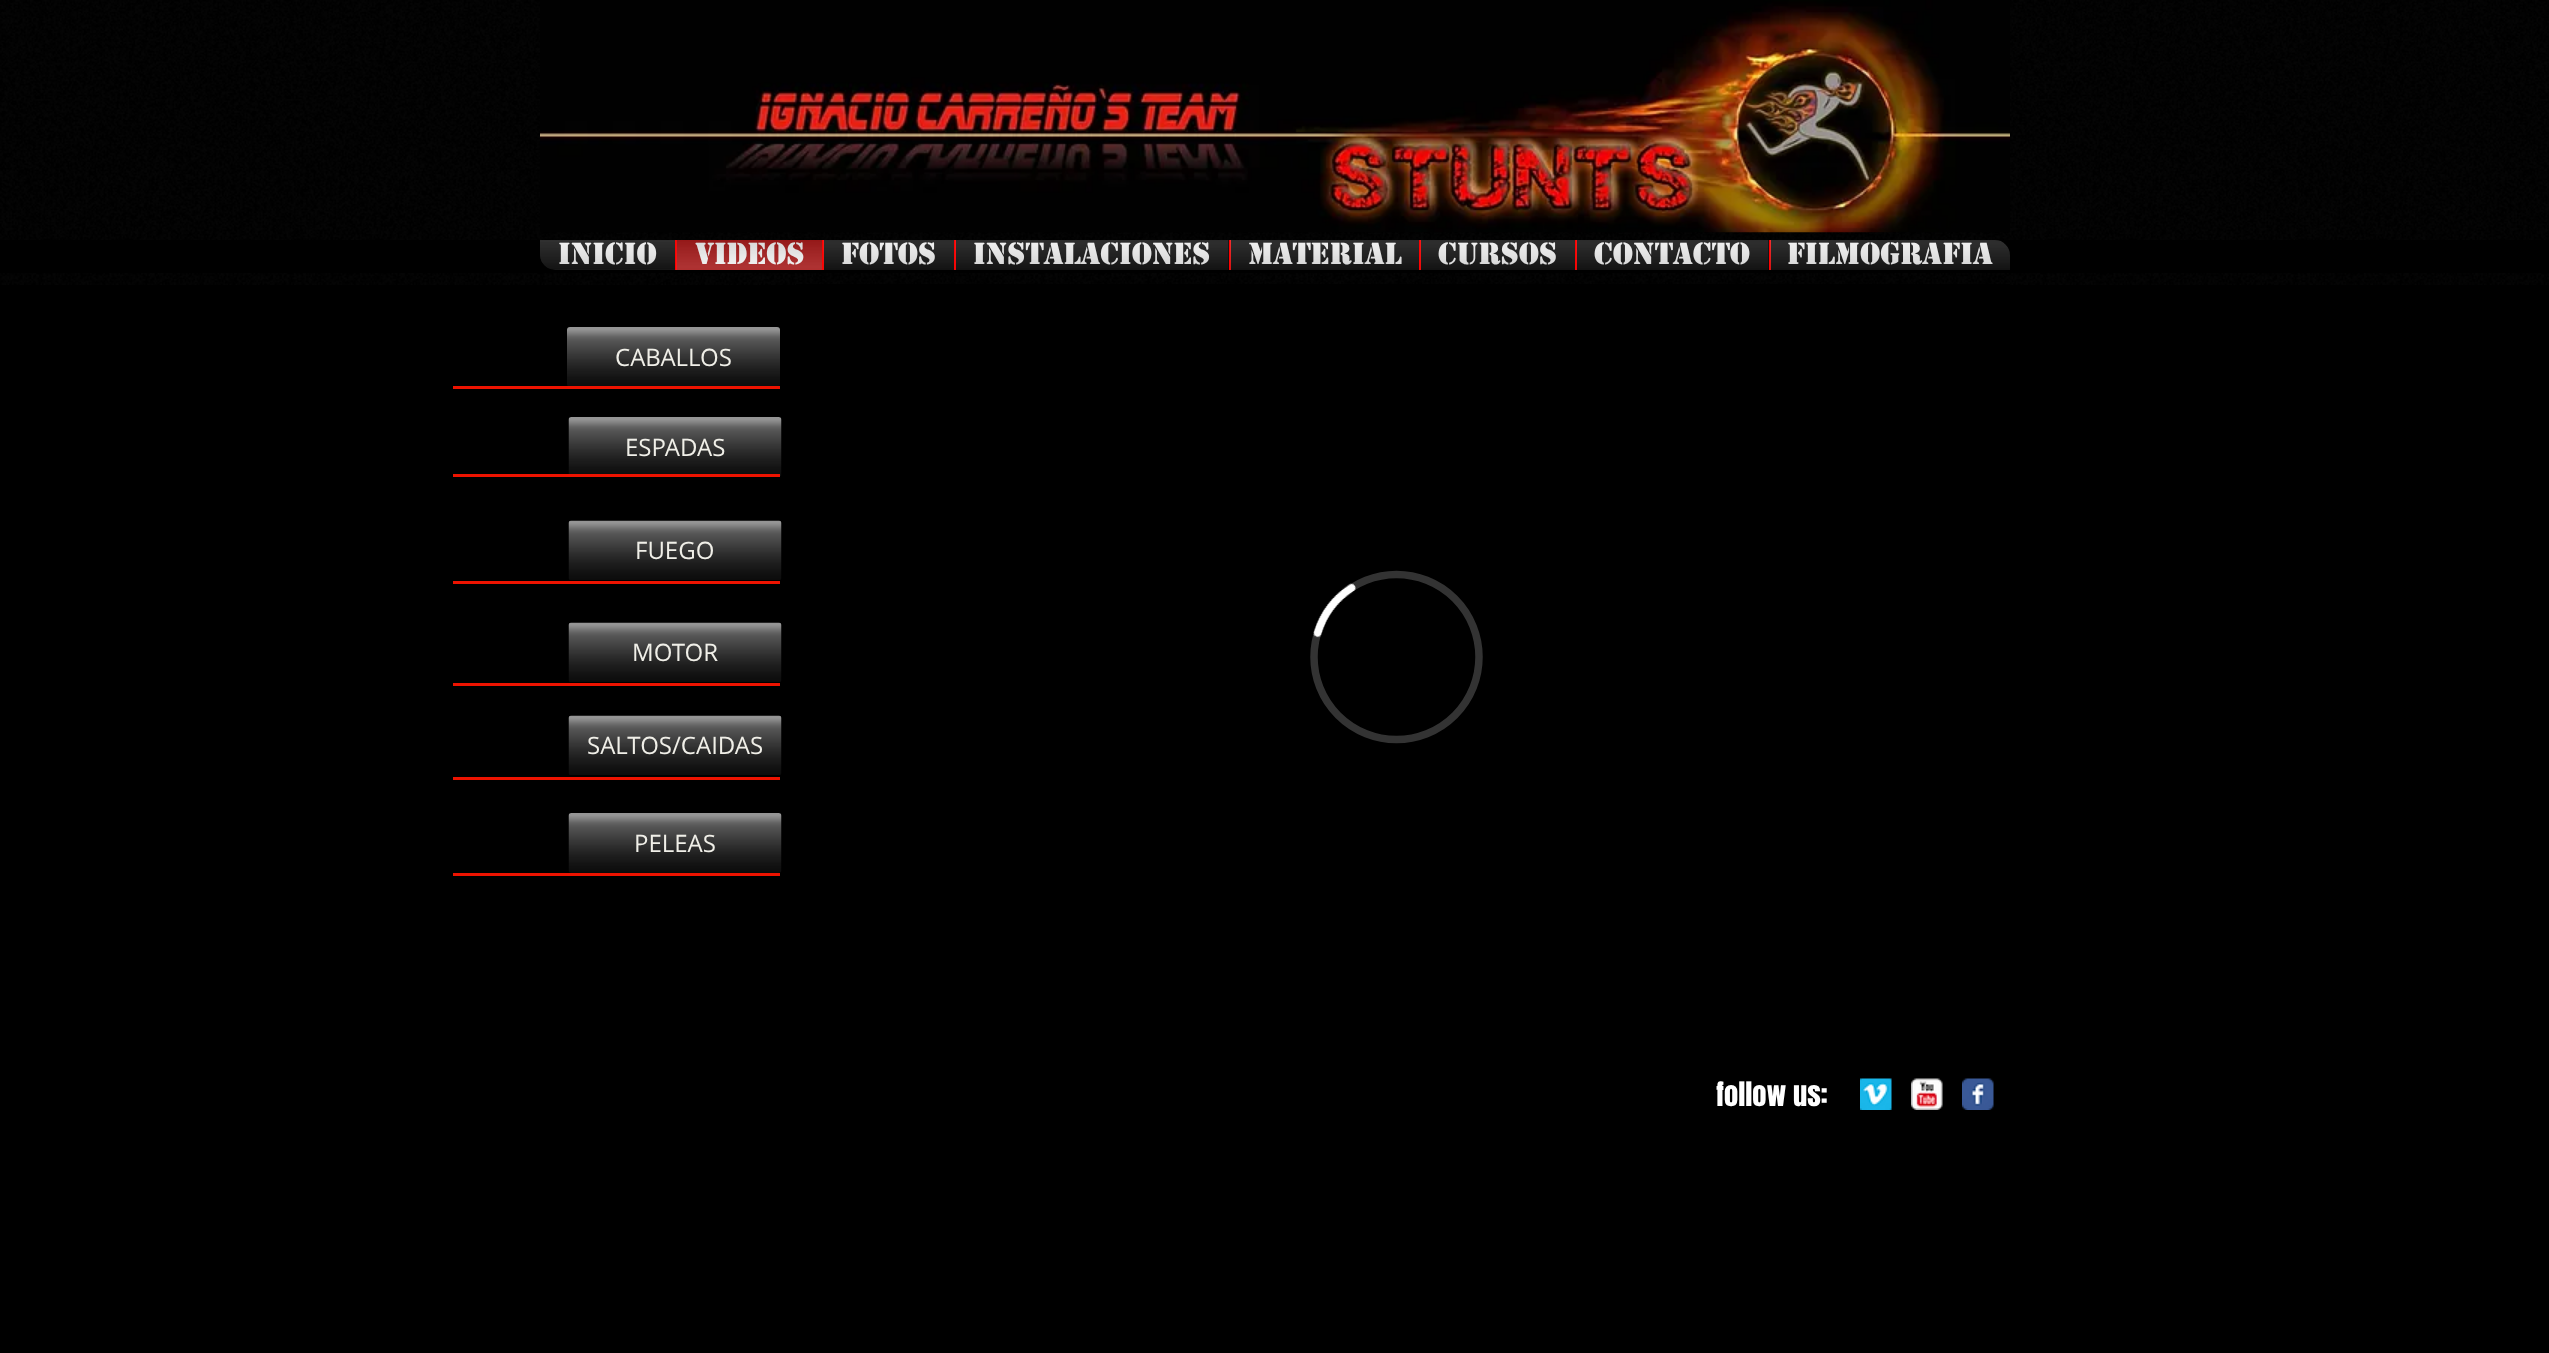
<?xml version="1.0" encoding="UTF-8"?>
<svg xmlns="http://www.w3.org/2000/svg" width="2549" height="1353">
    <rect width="100%" height="100%" fill="#000000"/>
    <image x="0" y="0" width="2549" height="285" href="img_01.png"/>
    <image x="540" y="0" width="1470" height="233" href="img_02.png"/>
    <rect x="0" y="240" width="2549" height="33" fill="#000000"/>
    <image x="540" y="240" width="1470" height="30" href="img_03.png"/>
    <image x="540" y="251" width="1470" height="18" href="img_04.png"/>
    <path d="M 540 240 H 675 V 270 H 555 C 546.5 270 540 263.5 540 255 Z" fill="#000000"/>
    <text x="558" y="264" font-family="'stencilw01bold'" font-size="28.5" font-weight="700" fill="#FFFFFF">INICIO</text>
    <image x="540" y="240" width="135" height="30" href="img_05.png"/>
    <image x="540" y="242" width="135" height="27" href="img_06.png"/>
    <rect x="677" y="240" width="145" height="30" fill="#A60303"/>
    <rect x="675" y="240" width="2" height="30" fill="#FF0000"/>
    <text x="695" y="264" font-family="'stencilw01bold'" font-size="28.5" font-weight="700" fill="#FFFFFF">VIDEOS</text>
    <image x="676" y="240" width="146" height="30" href="img_07.png"/>
    <image x="676" y="240" width="146" height="30" href="img_08.png"/>
    <rect x="824" y="240" width="130" height="30" fill="#000000"/>
    <rect x="822" y="240" width="2" height="30" fill="#FF0000"/>
    <text x="841" y="264" font-family="'stencilw01bold'" font-size="28.5" font-weight="700" fill="#FFFFFF">FOTOS</text>
    <image x="823" y="240" width="131" height="30" href="img_09.png"/>
    <image x="823" y="240" width="131" height="30" href="img_10.png"/>
    <rect x="956" y="240" width="273" height="30" fill="#000000"/>
    <rect x="954" y="240" width="2" height="30" fill="#FF0000"/>
    <text x="973" y="264" font-family="'stencilw01bold'" font-size="28.5" font-weight="700" fill="#FFFFFF">INSTALACIONES</text>
    <image x="955" y="240" width="274" height="30" href="img_11.png"/>
    <image x="955" y="240" width="273" height="30" href="img_12.png"/>
    <rect x="1231" y="240" width="188" height="30" fill="#000000"/>
    <rect x="1229" y="240" width="2" height="30" fill="#FF0000"/>
    <text x="1248" y="264" font-family="'stencilw01bold'" font-size="28.5" font-weight="700" fill="#FFFFFF">MATERIAL</text>
    <image x="1230" y="240" width="189" height="30" href="img_13.png"/>
    <image x="1230" y="240" width="189" height="30" href="img_14.png"/>
    <rect x="1421" y="240" width="154" height="30" fill="#000000"/>
    <rect x="1419" y="240" width="2" height="30" fill="#FF0000"/>
    <text x="1438" y="264" font-family="'stencilw01bold'" font-size="28.5" font-weight="700" fill="#FFFFFF">CURSOS</text>
    <image x="1420" y="240" width="155" height="30" href="img_15.png"/>
    <image x="1420" y="240" width="155" height="30" href="img_16.png"/>
    <rect x="1577" y="240" width="192" height="30" fill="#000000"/>
    <rect x="1575" y="240" width="2" height="30" fill="#FF0000"/>
    <text x="1594" y="264" font-family="'stencilw01bold'" font-size="28.5" font-weight="700" fill="#FFFFFF">CONTACTO</text>
    <image x="1576" y="240" width="193" height="30" href="img_17.png"/>
    <image x="1576" y="240" width="192" height="30" href="img_18.png"/>
    <path d="M 1769 240 H 1995 C 2003.5 240 2010 246.5 2010 255 V 270 H 1769 Z" fill="#000000"/>
    <rect x="1769" y="240" width="2" height="30" fill="#FF0000"/>
    <text x="1787" y="264" font-family="'stencilw01bold'" font-size="28.5" font-weight="700" fill="#FFFFFF">FILMOGRAFIA</text>
    <image x="1770" y="240" width="240" height="30" href="img_19.png"/>
    <image x="1770" y="240" width="240" height="30" href="img_20.png"/>
    <image x="567" y="327" width="213" height="59" href="img_21.png"/>
    <text x="615" y="366" font-family="Open Sans" font-size="24" fill="#F0EFE8">CABALLOS</text>
    <image x="568" y="417" width="214" height="59" href="img_22.png"/>
    <text x="625" y="456" font-family="Open Sans" font-size="24" fill="#F0EFE8">ESPADAS</text>
    <image x="568" y="520" width="214" height="60" href="img_23.png"/>
    <text x="635" y="559" font-family="Open Sans" font-size="24" fill="#F0EFE8">FUEGO</text>
    <image x="568" y="622" width="214" height="60" href="img_23.png"/>
    <text x="632" y="661" font-family="Open Sans" font-size="24" fill="#F0EFE8">MOTOR</text>
    <image x="568" y="715" width="214" height="60" href="img_23.png"/>
    <text x="587" y="754" font-family="Open Sans" font-size="24" fill="#F0EFE8">SALTOS/CAIDAS</text>
    <image x="568" y="813" width="214" height="60" href="img_24.png"/>
    <text x="634" y="852" font-family="Open Sans" font-size="24" fill="#F0EFE8">PELEAS</text>
    <rect x="453" y="386" width="327" height="3" fill="#ED1300"/>
    <rect x="453" y="474" width="327" height="3" fill="#ED1300"/>
    <rect x="453" y="581" width="327" height="3" fill="#ED1300"/>
    <rect x="453" y="683" width="327" height="3" fill="#ED1300"/>
    <rect x="453" y="777" width="327" height="3" fill="#ED1300"/>
    <rect x="453" y="873" width="327" height="3" fill="#ED1300"/>
    <image x="796" y="284" width="1214" height="460" href="img_25.png"/>
    <text x="1716" y="1106" font-family="Anton" font-size="28.5" fill="#FFFFFF">follow us:</text>
    <image x="1860" y="1078" width="32" height="32" href="img_26.png"/>
    <image x="1911" y="1078" width="32" height="32" href="img_27.png"/>
    <image x="1962" y="1078" width="32" height="32" href="img_28.png"/>
</svg>
